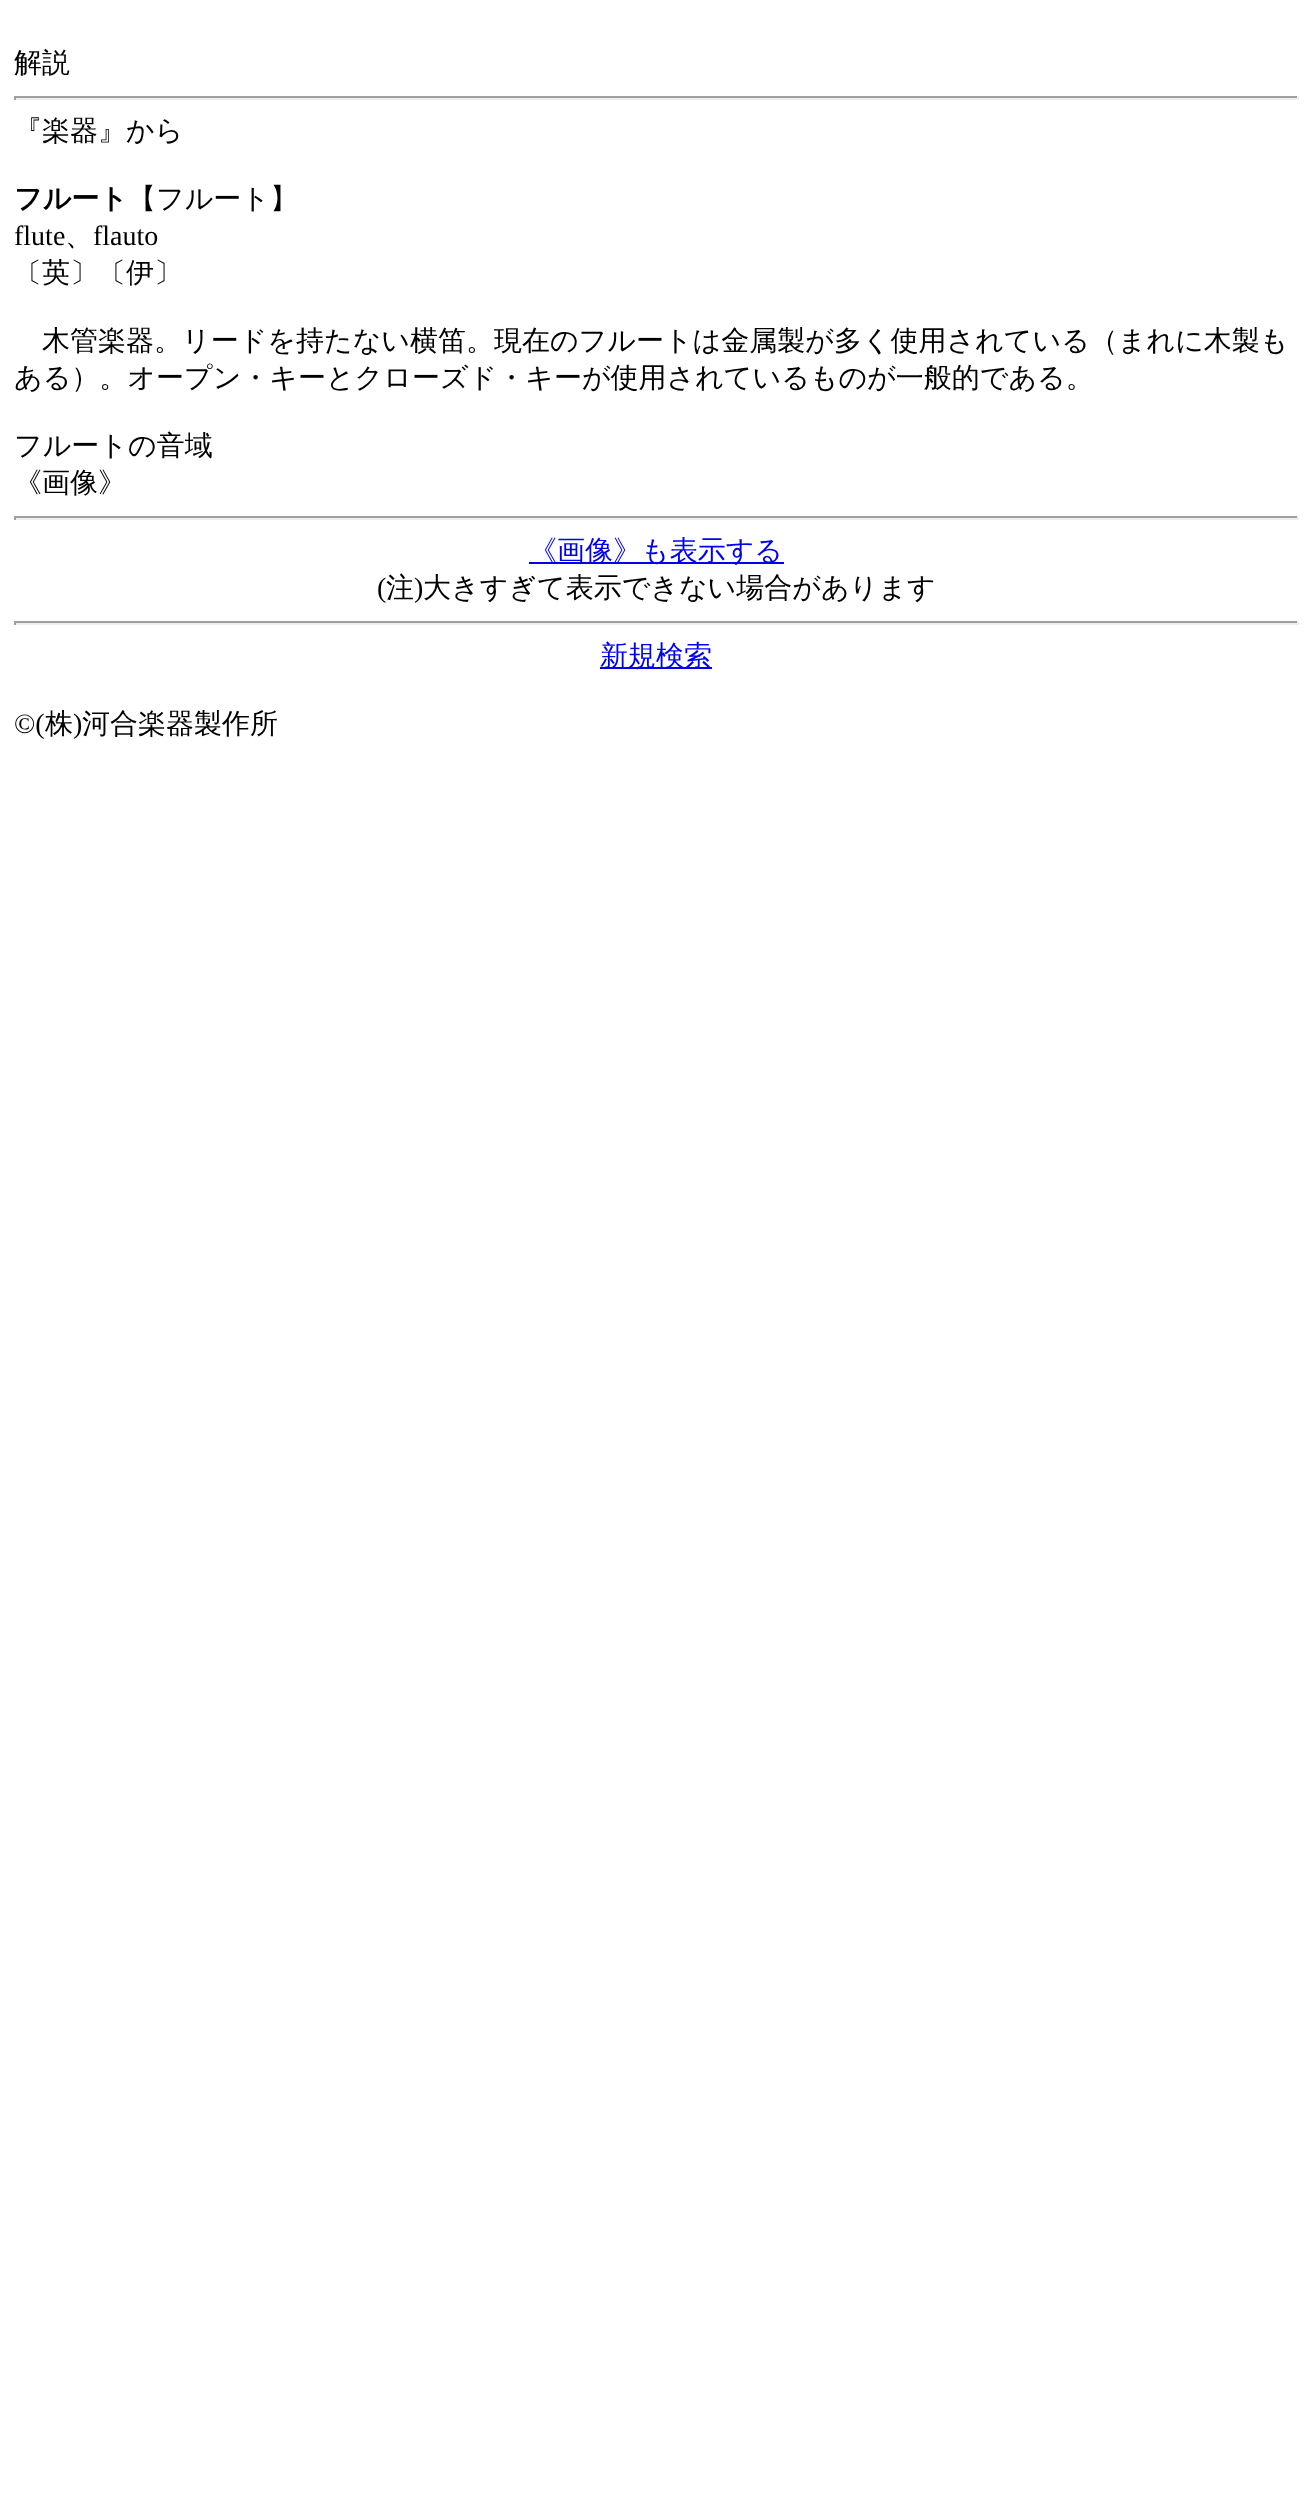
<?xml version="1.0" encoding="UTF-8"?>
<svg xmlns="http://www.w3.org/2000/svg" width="1311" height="2498">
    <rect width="100%" height="100%" fill="#FFFFFF"/>
    <text x="14" y="72" font-family="WenQuanYi Zen Hei" font-size="28" font-weight="500" fill="#000000">解説</text>
    <rect x="14" y="96" width="1285" height="2" fill="#9F9F9F"/>
    <rect x="1297" y="96" width="2" height="4" fill="#EEEEEE"/>
    <rect x="14" y="98" width="1285" height="2" fill="#EEEEEE"/>
    <rect x="14" y="96" width="2" height="4" fill="#9F9F9F"/>
    <text x="14" y="140" font-family="WenQuanYi Zen Hei" font-size="28" font-weight="500" fill="#000000">『楽器』から</text>
    <text x="14" y="208" font-family="WenQuanYi Zen Hei" font-size="28" font-weight="700" fill="#000000">フルート</text>
    <text x="128" y="208" font-family="WenQuanYi Zen Hei" font-size="28" font-weight="500" fill="#000000">【フルート】</text>
    <text x="14" y="245" font-family="Liberation Serif" font-size="28" fill="#000000">flute</text>
    <text x="65" y="245" font-family="WenQuanYi Zen Hei" font-size="28" font-weight="500" fill="#000000">、</text>
    <text x="93" y="245" font-family="Liberation Serif" font-size="28" fill="#000000">flauto</text>
    <text x="14" y="282" font-family="WenQuanYi Zen Hei" font-size="28" font-weight="500" fill="#000000">〔英〕〔伊〕</text>
    <text x="42" y="350" font-family="WenQuanYi Zen Hei" font-size="28" font-weight="500" fill="#000000">木管楽器。リードを持たない横笛。現在のフルートは金属製が多く使用されている（まれに木製も</text>
    <text x="14" y="387" font-family="WenQuanYi Zen Hei" font-size="28" font-weight="500" fill="#000000">ある）。オープン・キーとクローズド・キーが使用されているものが一般的である。</text>
    <text font-family="WenQuanYi Zen Hei" font-size="28" font-weight="500" fill="#000000">
        <tspan x="14" y="455">フルートの音域</tspan>
        <tspan x="14" y="492">《画像》</tspan>
    </text>
    <rect x="14" y="516" width="1285" height="2" fill="#9F9F9F"/>
    <rect x="1297" y="516" width="2" height="4" fill="#EEEEEE"/>
    <rect x="14" y="518" width="1285" height="2" fill="#EEEEEE"/>
    <rect x="14" y="516" width="2" height="4" fill="#9F9F9F"/>
    <rect x="529" y="562" width="255" height="2" fill="#0000EE"/>
    <text x="529" y="560" font-family="WenQuanYi Zen Hei" font-size="28" font-weight="500" fill="#0000EE">《画像》も表示する</text>
    <text x="377" y="597" font-family="Liberation Serif" font-size="28" fill="#000000">(</text>
    <text x="386" y="597" font-family="WenQuanYi Zen Hei" font-size="28" font-weight="500" fill="#000000">注</text>
    <text x="414" y="597" font-family="Liberation Serif" font-size="28" fill="#000000">)</text>
    <text x="423" y="597" font-family="WenQuanYi Zen Hei" font-size="28" font-weight="500" fill="#000000">大きすぎて表示できない場合があります</text>
    <rect x="14" y="621" width="1285" height="2" fill="#9F9F9F"/>
    <rect x="1297" y="621" width="2" height="4" fill="#EEEEEE"/>
    <rect x="14" y="623" width="1285" height="2" fill="#EEEEEE"/>
    <rect x="14" y="621" width="2" height="4" fill="#9F9F9F"/>
    <rect x="600" y="667" width="112" height="2" fill="#0000EE"/>
    <text x="600" y="665" font-family="WenQuanYi Zen Hei" font-size="28" font-weight="500" fill="#0000EE">新規検索</text>
    <text x="14" y="733" font-family="Liberation Serif" font-size="28" fill="#000000">©(</text>
    <text x="45" y="733" font-family="WenQuanYi Zen Hei" font-size="28" font-weight="500" fill="#000000">株</text>
    <text x="73" y="733" font-family="Liberation Serif" font-size="28" fill="#000000">)</text>
    <text x="82" y="733" font-family="WenQuanYi Zen Hei" font-size="28" font-weight="500" fill="#000000">河合楽器製作所</text>
</svg>
